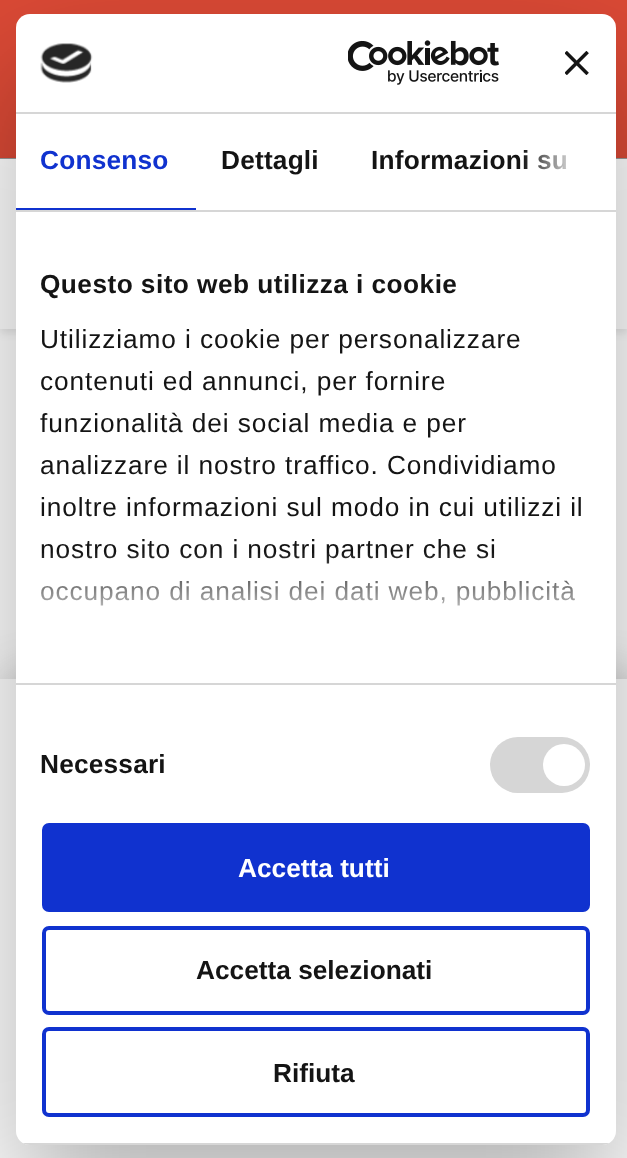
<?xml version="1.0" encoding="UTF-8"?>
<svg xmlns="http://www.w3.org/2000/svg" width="627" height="1158">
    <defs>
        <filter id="blur1" x="-50%" y="-200%" width="200%" height="500%"><feGaussianBlur stdDeviation="4.5"/></filter>
        <clipPath id="clip1"><rect x="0" y="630" width="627" height="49"/></clipPath>
        <filter id="blur2" x="-50%" y="-200%" width="200%" height="500%"><feGaussianBlur stdDeviation="29"/></filter>
        <filter id="blur3" x="-50%" y="-200%" width="200%" height="500%"><feGaussianBlur stdDeviation="59.5"/></filter>
        <linearGradient id="g1" gradientUnits="userSpaceOnUse" x1="615" y1="162" x2="522" y2="162"><stop offset="0" stop-color="#FFFFFF"/><stop offset="0.5" stop-color="#FFFFFF" stop-opacity="0.8"/><stop offset="1" stop-color="#FFFFFF" stop-opacity="0"/></linearGradient>
        <linearGradient id="g2" gradientUnits="userSpaceOnUse" x1="304" y1="683" x2="304" y2="551"><stop offset="0" stop-color="#FFFFFF"/><stop offset="0.5" stop-color="#FFFFFF" stop-opacity="0.8"/><stop offset="1" stop-color="#FFFFFF" stop-opacity="0"/></linearGradient>
        <clipPath id="clip2"><rect x="16" y="14" width="600" height="1131" rx="14"/></clipPath>
    </defs>
    <rect width="100%" height="100%" fill="#FFFFFF"/>
    <rect x="0" y="0" width="627" height="158" fill="#DA4935"/>
    <rect x="0" y="158" width="627" height="1" fill="#9B9B9B"/>
    <rect x="0" y="163" width="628" height="170" fill="#131516" fill-opacity="0.1" filter="url(#blur1)"/>
    <rect x="0" y="159" width="627" height="170" fill="#FFFFFF"/>
    <g clip-path="url(#clip1)">
        <rect x="9" y="686" width="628" height="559" fill="#9B9B9B" filter="url(#blur2)"/>
    </g>
    <rect x="16" y="70" width="600" height="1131" rx="14" fill="#000000" fill-opacity="0.3" filter="url(#blur3)"/>
    <rect x="16" y="14" width="600" height="1131" rx="14" fill="#FFFFFF"/>
    <rect x="16" y="112" width="600" height="2" fill="#D6D6D6"/>
    <image x="40" y="43" width="53" height="40" href="img_01.png"/>
    <image x="348" y="40" width="151" height="45" href="img_02.png"/>
    <image x="565" y="51" width="24" height="24" href="img_03.png"/>
    <rect x="16" y="210" width="600" height="2" fill="#D6D6D6"/>
    <rect x="16" y="208" width="180" height="2" fill="#1032CF"/>
    <text x="40" y="169" font-family="Liberation Sans" font-size="26.25" font-weight="700" letter-spacing="0.2" fill="#1032CF">Consenso</text>
    <text x="221" y="169" font-family="Liberation Sans" font-size="26.25" font-weight="700" letter-spacing="0.2" fill="#141414">Dettagli</text>
    <text x="371" y="169" font-family="Liberation Sans" font-size="26.25" font-weight="700" letter-spacing="0.2" fill="#141414">Informazioni su</text>
    <rect x="524" y="150" width="42" height="20" fill="url(#g1)"/>
    <rect x="16" y="683" width="600" height="2" fill="#D6D6D6"/>
    <text x="40" y="293" font-family="Liberation Sans" font-size="26.25" font-weight="700" letter-spacing="0.45" fill="#141414">Questo sito web utilizza i cookie</text>
    <text font-family="Liberation Sans" font-size="26.25" letter-spacing="0.9" fill="#141414">
        <tspan x="40" y="348">Utilizziamo i cookie per personalizzare</tspan>
        <tspan x="40" y="390">contenuti ed annunci, per fornire</tspan>
        <tspan x="40" y="432">funzionalità dei social media e per</tspan>
        <tspan x="40" y="474">analizzare il nostro traffico. Condividiamo</tspan>
        <tspan x="40" y="516">inoltre informazioni sul modo in cui utilizzi il</tspan>
        <tspan x="40" y="558">nostro sito con i nostri partner che si</tspan>
        <tspan x="40" y="600">occupano di analisi dei dati web, pubblicità</tspan>
    </text>
    <rect x="41" y="553" width="534" height="53" fill="url(#g2)"/>
    <text x="40" y="773" font-family="Liberation Sans" font-size="26.25" font-weight="700" letter-spacing="0.2" fill="#141414">Necessari</text>
    <rect x="490" y="737" width="100" height="56" rx="28" fill="#D6D6D6"/>
    <circle cx="564" cy="765" r="21" fill="#FFFFFF"/>
    <g clip-path="url(#clip2)">
        <rect x="16" y="1143" width="600" height="2" fill="#D6D6D6"/>
    </g>
    <rect x="44" y="825" width="544" height="85" rx="5" fill="#1032CF" stroke="#1032CF" stroke-width="4"/>
    <text x="238" y="877" font-family="Liberation Sans" font-size="26.25" font-weight="700" fill="#FFFFFF">Accetta tutti</text>
    <rect x="44" y="928" width="544" height="85" rx="5" fill="none" stroke="#1032CF" stroke-width="4"/>
    <text x="196" y="979" font-family="Liberation Sans" font-size="26.25" font-weight="700" fill="#141414">Accetta selezionati</text>
    <rect x="44" y="1029" width="544" height="86" rx="5" fill="none" stroke="#1032CF" stroke-width="4"/>
    <text x="273" y="1082" font-family="Liberation Sans" font-size="26.25" font-weight="700" fill="#141414">Rifiuta</text>
</svg>
